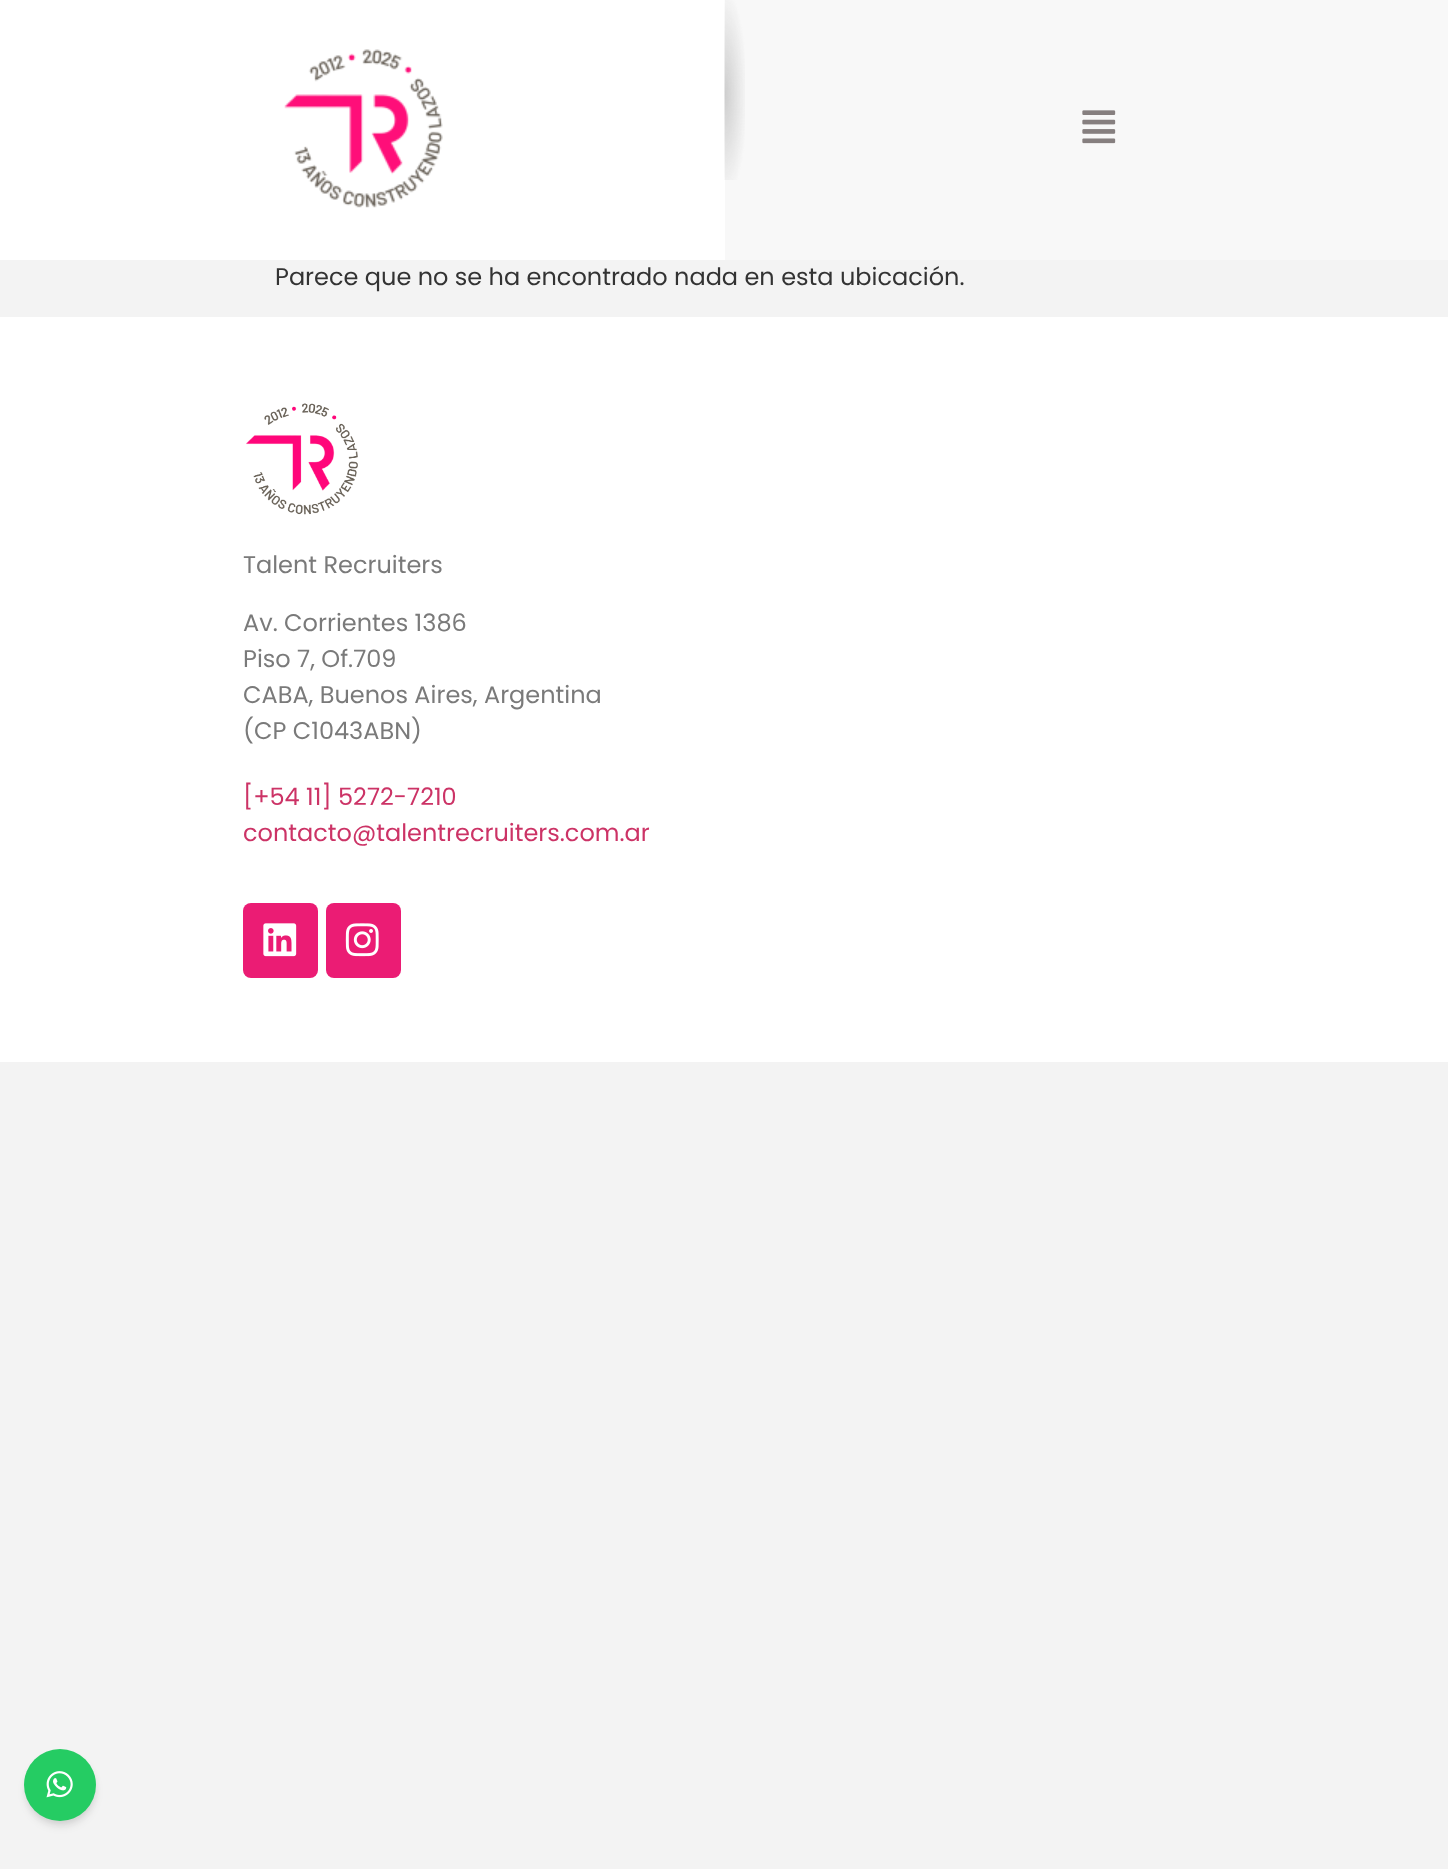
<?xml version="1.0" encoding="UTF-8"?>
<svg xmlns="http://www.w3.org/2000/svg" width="1448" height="1869">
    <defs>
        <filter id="blur1" x="-50%" y="-200%" width="200%" height="500%"><feGaussianBlur stdDeviation="3"/></filter>
        <filter id="blur2" x="-50%" y="-200%" width="200%" height="500%"><feGaussianBlur stdDeviation="4.5"/></filter>
    </defs>
    <rect width="100%" height="100%" fill="#F3F3F3"/>
    <rect x="725" y="0" width="723" height="260" fill="#F8F8F8"/>
    <rect x="0" y="0" width="725" height="260" fill="#FFFFFF"/>
    <image x="284" y="49" width="159" height="159" href="img_01.png"/>
    <image x="724" y="0" width="21" height="180" href="img_02.png"/>
    <image x="1082" y="110" width="34" height="34" href="img_03.png"/>
    <text x="275" y="285" font-family="Poppins" font-size="24" fill="#333333">Parece que no se ha encontrado nada en esta ubicación.</text>
    <rect x="0" y="317" width="1448" height="745" fill="#FFFFFF"/>
    <image x="246" y="403" width="112" height="112" href="img_04.png"/>
    <text x="243" y="573" font-family="Poppins" font-size="24" fill="#7A7A7A">Talent Recruiters</text>
    <text font-family="Poppins" font-size="24" fill="#7A7A7A">
        <tspan x="243" y="631">Av. Corrientes 1386</tspan>
        <tspan x="243" y="667">Piso 7, Of.709</tspan>
        <tspan x="243" y="703">CABA, Buenos Aires, Argentina</tspan>
        <tspan x="243" y="739">(CP C1043ABN)</tspan>
    </text>
    <text font-family="Poppins" font-size="24" fill="#CC3366">
        <tspan x="243" y="805">[+54 11] 5272-7210</tspan>
        <tspan x="243" y="841">contacto@talentrecruiters.com.ar</tspan>
    </text>
    <rect x="243" y="903" width="75" height="75" rx="8" fill="#EB1C74"/>
    <image x="263" y="923" width="34" height="34" href="img_05.png"/>
    <rect x="326" y="903" width="75" height="75" rx="8" fill="#EB1C74"/>
    <image x="345" y="923" width="34" height="34" href="img_06.png"/>
    <rect x="26" y="1754" width="69" height="69" rx="34.5" fill="#000000" fill-opacity="0.06" filter="url(#blur1)"/>
    <rect x="26" y="1757" width="69" height="69" rx="34.5" fill="#000000" fill-opacity="0.1" filter="url(#blur2)"/>
    <circle cx="60" cy="1785" r="36" fill="#25CC63"/>
    <image x="46" y="1771" width="27" height="27" href="img_07.png"/>
</svg>
